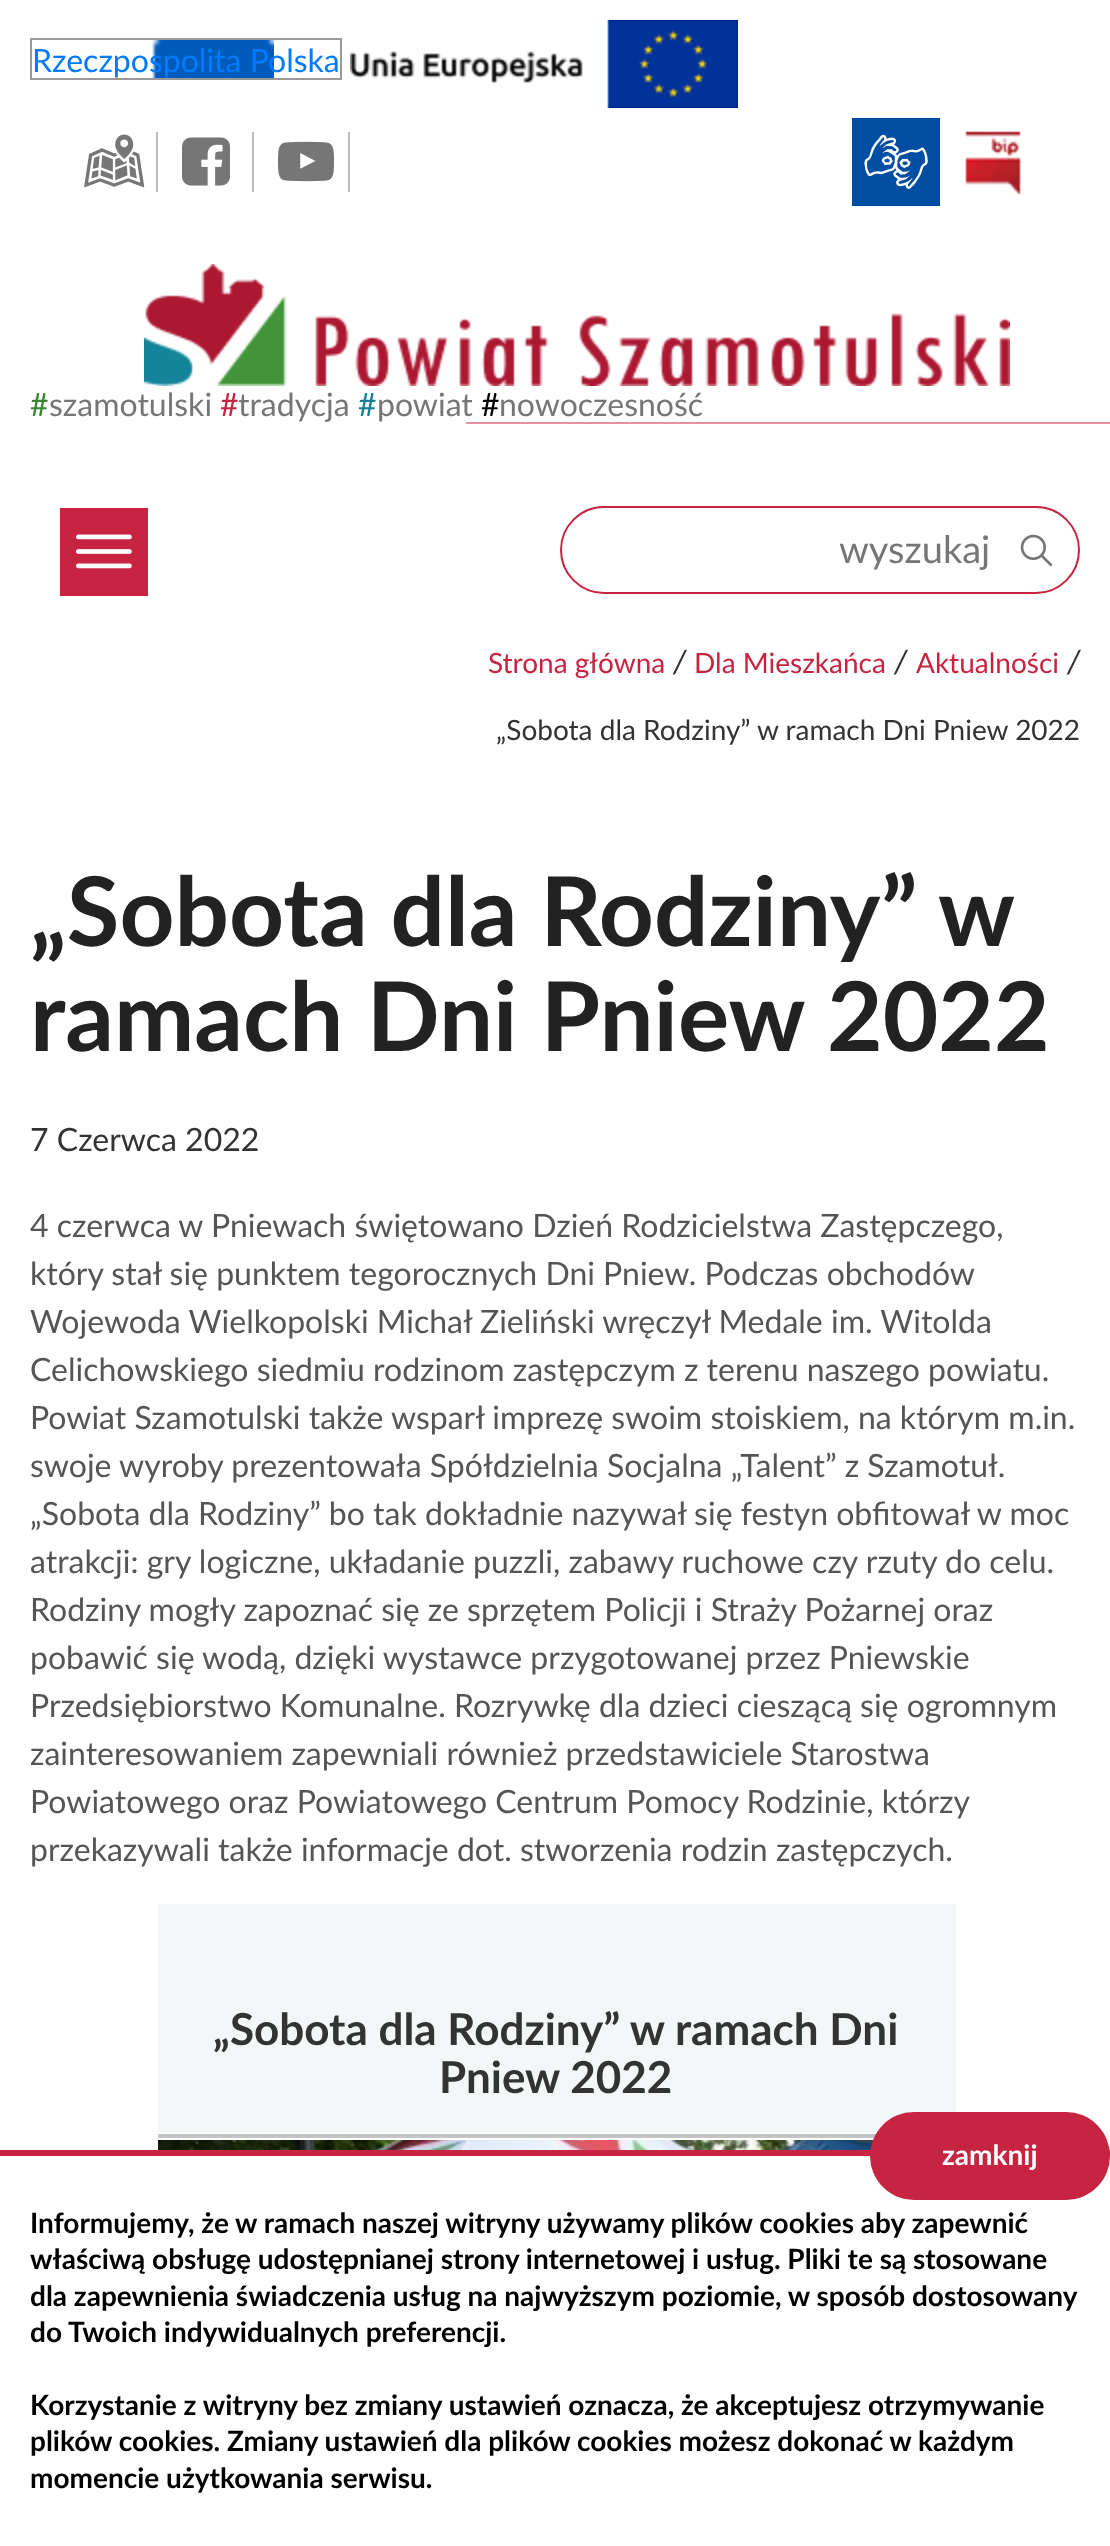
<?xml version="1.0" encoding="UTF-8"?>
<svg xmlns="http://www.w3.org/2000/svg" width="1110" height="2546">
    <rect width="100%" height="100%" fill="#FFFFFF"/>
    <image x="152" y="40" width="122" height="38" href="img_01.png"/>
    <image x="350" y="20" width="388" height="88" href="img_02.png"/>
    <rect x="31" y="39" width="310" height="40" fill="none" stroke="#999999" stroke-width="2"/>
    <text x="32" y="72" font-family="Lato" font-size="32" fill="#007BFF">Rzeczpospolita Polska</text>
    <image x="84" y="134" width="61" height="54" href="img_03.png"/>
    <rect x="156" y="132" width="2" height="60" fill="#BBBBBB"/>
    <image x="182" y="137" width="48" height="49" href="img_04.png"/>
    <rect x="252" y="132" width="2" height="60" fill="#BBBBBB"/>
    <image x="278" y="141" width="56" height="41" href="img_05.png"/>
    <rect x="348" y="132" width="2" height="60" fill="#BBBBBB"/>
    <rect x="852" y="118" width="88" height="88" fill="#004EA2"/>
    <image x="864" y="134" width="64" height="55" href="img_06.png"/>
    <image x="965" y="131" width="56" height="64" href="img_07.png"/>
    <image x="144" y="264" width="866" height="122" href="img_08.png"/>
    <text x="30" y="416" font-family="Lato" font-size="32" fill="#398632">#</text>
    <text x="49" y="416" font-family="Lato" font-size="32" fill="#767676">szamotulski</text>
    <text x="220" y="416" font-family="Lato" font-size="32" fill="#C72441">#</text>
    <text x="238" y="416" font-family="Lato" font-size="32" fill="#767676">tradycja</text>
    <text x="358" y="416" font-family="Lato" font-size="32" fill="#147F94">#</text>
    <text x="377" y="416" font-family="Lato" font-size="32" fill="#767676">powiat</text>
    <text x="481" y="416" font-family="Lato" font-size="32" fill="#000000">#</text>
    <text x="499" y="416" font-family="Lato" font-size="32" fill="#767676">nowoczesność</text>
    <rect x="466" y="422" width="644" height="2" fill="#E392A0"/>
    <rect x="60" y="508" width="88" height="88" fill="#C72441"/>
    <image x="76" y="534" width="56" height="35" href="img_09.png"/>
    <rect x="561" y="507" width="518" height="86" rx="43" fill="none" stroke="#C72441" stroke-width="2"/>
    <text x="839" y="563" font-family="Lato" font-size="38" fill="#767676">wyszukaj</text>
    <image x="1020" y="534" width="33" height="33" href="img_10.png"/>
    <text x="488" y="673" font-family="Lato" font-size="28" fill="#C72441">Strona główna</text>
    <text x="673" y="673" font-family="Lato" font-size="32" font-style="italic" fill="#333333">/</text>
    <text x="694" y="673" font-family="Lato" font-size="28" fill="#C72441">Dla Mieszkańca</text>
    <text x="894" y="673" font-family="Lato" font-size="32" font-style="italic" fill="#333333">/</text>
    <text x="916" y="673" font-family="Lato" font-size="28" fill="#C72441">Aktualności</text>
    <text x="1067" y="673" font-family="Lato" font-size="32" font-style="italic" fill="#333333">/</text>
    <text x="496" y="740" font-family="Lato" font-size="28" fill="#333333">„Sobota dla Rodziny” w ramach Dni Pniew 2022</text>
    <text font-family="Lato" font-size="96" font-weight="700" fill="#222222">
        <tspan x="30" y="946" word-spacing="-0.5">„Sobota dla Rodziny” w</tspan>
        <tspan x="30" y="1051">ramach Dni Pniew 2022</tspan>
    </text>
    <text x="30" y="1151" font-family="Lato" font-size="32" fill="#333333">7 Czerwca 2022</text>
    <text font-family="Lato" font-size="32" fill="#555555">
        <tspan x="30" y="1237">4 czerwca w Pniewach świętowano Dzień Rodzicielstwa Zastępczego,</tspan>
        <tspan x="30" y="1285">który stał się punktem tegorocznych Dni Pniew. Podczas obchodów</tspan>
        <tspan x="30" y="1333">Wojewoda Wielkopolski Michał Zieliński wręczył Medale im. Witolda</tspan>
        <tspan x="30" y="1381">Celichowskiego siedmiu rodzinom zastępczym z terenu naszego powiatu.</tspan>
        <tspan x="30" y="1429">Powiat Szamotulski także wsparł imprezę swoim stoiskiem, na którym m.in.</tspan>
        <tspan x="30" y="1477">swoje wyroby prezentowała Spółdzielnia Socjalna „Talent” z Szamotuł.</tspan>
        <tspan x="30" y="1525">„Sobota dla Rodziny” bo tak dokładnie nazywał się festyn obfitował w moc</tspan>
        <tspan x="30" y="1573">atrakcji: gry logiczne, układanie puzzli, zabawy ruchowe czy rzuty do celu.</tspan>
        <tspan x="30" y="1621">Rodziny mogły zapoznać się ze sprzętem Policji i Straży Pożarnej oraz</tspan>
        <tspan x="30" y="1669">pobawić się wodą, dzięki wystawce przygotowanej przez Pniewskie</tspan>
        <tspan x="30" y="1717">Przedsiębiorstwo Komunalne. Rozrywkę dla dzieci cieszącą się ogromnym</tspan>
        <tspan x="30" y="1765">zainteresowaniem zapewniali również przedstawiciele Starostwa</tspan>
        <tspan x="30" y="1813">Powiatowego oraz Powiatowego Centrum Pomocy Rodzinie, którzy</tspan>
        <tspan x="30" y="1861">przekazywali także informacje dot. stworzenia rodzin zastępczych.</tspan>
    </text>
    <rect x="158" y="1904" width="798" height="228" fill="#F4F7F7"/>
    <text x="213" y="2045" font-family="Lato" font-size="44" font-weight="700" fill="#333333">„Sobota dla Rodziny” w ramach Dni</text>
    <text x="439" y="2093" font-family="Lato" font-size="44" font-weight="700" fill="#333333">Pniew 2022</text>
    <rect x="158" y="2134" width="718" height="4" fill="#C4C4C4"/>
    <image x="158" y="2140" width="715" height="10" href="img_11.png"/>
    <rect x="0" y="2150" width="1110" height="6" fill="#C72441"/>
    <rect x="870" y="2112" width="240" height="88" rx="44" fill="#C72441"/>
    <text x="942" y="2165" font-family="Lato" font-size="28" font-weight="700" fill="#FFFFFF">zamknij</text>
    <text font-family="Lato" font-size="28" font-weight="700" fill="#000000">
        <tspan x="30" y="2233">Informujemy, że w ramach naszej witryny używamy plików cookies aby zapewnić</tspan>
        <tspan x="30" y="2269">właściwą obsługę udostępnianej strony internetowej i usług. Pliki te są stosowane</tspan>
        <tspan x="30" y="2306">dla zapewnienia świadczenia usług na najwyższym poziomie, w sposób dostosowany</tspan>
        <tspan x="30" y="2342">do Twoich indywidualnych preferencji.</tspan>
    </text>
    <text font-family="Lato" font-size="28" font-weight="700" fill="#000000">
        <tspan x="30" y="2415">Korzystanie z witryny bez zmiany ustawień oznacza, że akceptujesz otrzymywanie</tspan>
        <tspan x="30" y="2451">plików cookies. Zmiany ustawień dla plików cookies możesz dokonać w każdym</tspan>
        <tspan x="30" y="2488">momencie użytkowania serwisu.</tspan>
    </text>
</svg>
